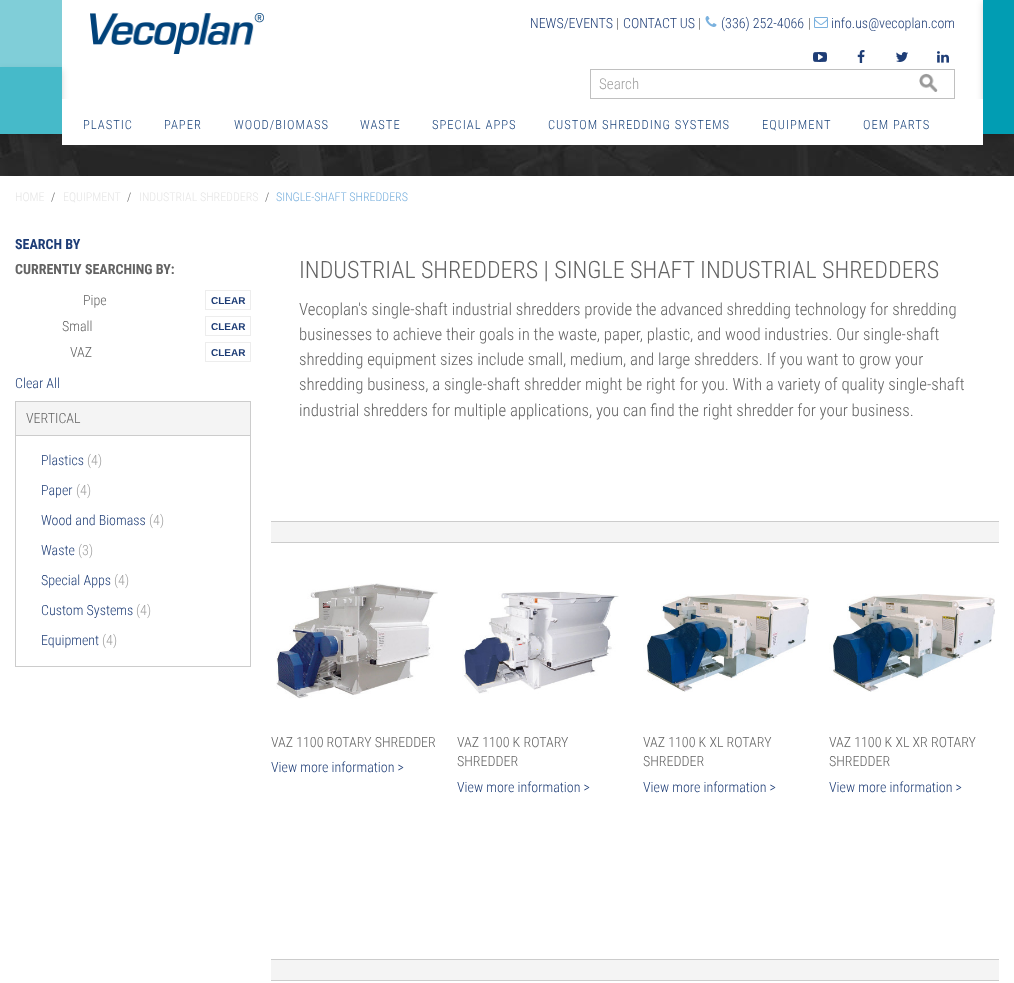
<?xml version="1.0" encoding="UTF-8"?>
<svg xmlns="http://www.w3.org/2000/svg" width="1014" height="983">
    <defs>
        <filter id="blur1" x="-50%" y="-200%" width="200%" height="500%"><feGaussianBlur stdDeviation="3.5"/></filter>
    </defs>
    <rect width="100%" height="100%" fill="#FFFFFF"/>
    <rect x="0" y="0" width="62" height="67" fill="#80CED8"/>
    <image x="0" y="134" width="1014" height="42" href="img_09.png"/>
    <rect x="983" y="2" width="31" height="135" fill="#000000" fill-opacity="0.15" filter="url(#blur1)"/>
    <rect x="983" y="0" width="31" height="134" fill="#019DB3"/>
    <rect x="0" y="70" width="62" height="67" fill="#000000" fill-opacity="0.15" filter="url(#blur1)"/>
    <rect x="0" y="67" width="62" height="67" fill="#46BAC9"/>
    <image x="90" y="13" width="174" height="41" href="img_01.png"/>
    <text x="530" y="28" font-family="Roboto Condensed" font-size="14" font-weight="300" fill="#1E3D76">NEWS/EVENTS</text>
    <text x="616" y="28" font-family="Roboto Condensed" font-size="14" font-weight="300" fill="#636363">|</text>
    <text x="623" y="28" font-family="Roboto Condensed" font-size="14" font-weight="300" fill="#1E3D76">CONTACT US</text>
    <text x="698" y="28" font-family="Roboto Condensed" font-size="14" font-weight="300" fill="#636363">|</text>
    <image x="705" y="16" width="12" height="11" href="img_02.png"/>
    <text x="721" y="28" font-family="Roboto Condensed" font-size="14" font-weight="300" fill="#1E3D76">(336) 252-4066</text>
    <text x="808" y="28" font-family="Roboto Condensed" font-size="14" font-weight="300" fill="#636363">|</text>
    <image x="814" y="17" width="14" height="11" href="img_03.png"/>
    <text x="831" y="28" font-family="Roboto Condensed" font-size="14" font-weight="300" fill="#1E3D76">info.us@vecoplan.com</text>
    <image x="813" y="52" width="14" height="10" href="img_04.png"/>
    <image x="857" y="50" width="8" height="13" href="img_05.png"/>
    <image x="896" y="52" width="12" height="10" href="img_06.png"/>
    <image x="937" y="51" width="12" height="12" href="img_07.png"/>
    <rect x="590.5" y="69.5" width="364" height="29" fill="none" stroke="#C0C0C0"/>
    <text x="599" y="89" font-family="Roboto Condensed" font-size="15" font-weight="300" fill="#A0A0A0">Search</text>
    <image x="919" y="73" width="19" height="19" href="img_08.png"/>
    <rect x="62" y="99" width="921" height="46" fill="#FFFFFF"/>
    <text x="83" y="129" font-family="Roboto Condensed" font-size="12.6" font-weight="300" letter-spacing="1" fill="#1A437B">PLASTIC</text>
    <text x="164" y="129" font-family="Roboto Condensed" font-size="12.6" font-weight="300" letter-spacing="1" fill="#1A437B">PAPER</text>
    <text x="234" y="129" font-family="Roboto Condensed" font-size="12.6" font-weight="300" letter-spacing="1" fill="#1A437B">WOOD/BIOMASS</text>
    <text x="360" y="129" font-family="Roboto Condensed" font-size="12.6" font-weight="300" letter-spacing="1" fill="#1A437B">WASTE</text>
    <text x="432" y="129" font-family="Roboto Condensed" font-size="12.6" font-weight="300" letter-spacing="1" fill="#1A437B">SPECIAL APPS</text>
    <text x="548" y="129" font-family="Roboto Condensed" font-size="12.6" font-weight="300" letter-spacing="1" fill="#1A437B">CUSTOM SHREDDING SYSTEMS</text>
    <text x="762" y="129" font-family="Roboto Condensed" font-size="12.6" font-weight="300" letter-spacing="1" fill="#1A437B">EQUIPMENT</text>
    <text x="863" y="129" font-family="Roboto Condensed" font-size="12.6" font-weight="300" letter-spacing="1" fill="#1A437B">OEM PARTS</text>
    <text x="15" y="201" font-family="Roboto Condensed" font-size="12" font-weight="300" fill="#E6E6E6">HOME</text>
    <text x="51" y="201" font-family="Roboto Condensed" font-size="12" font-weight="300" fill="#636363">/</text>
    <text x="63" y="201" font-family="Roboto Condensed" font-size="12" font-weight="300" fill="#E6E6E6">EQUIPMENT</text>
    <text x="127" y="201" font-family="Roboto Condensed" font-size="12" font-weight="300" fill="#636363">/</text>
    <text x="139" y="201" font-family="Roboto Condensed" font-size="12" font-weight="300" fill="#E6E6E6">INDUSTRIAL SHREDDERS</text>
    <text x="265" y="201" font-family="Roboto Condensed" font-size="12" font-weight="300" fill="#636363">/</text>
    <text x="276" y="201" font-family="Roboto Condensed" font-size="12" font-weight="300" fill="#7AB1DE">SINGLE-SHAFT SHREDDERS</text>
    <text x="15" y="249" font-family="Roboto Condensed" font-size="14" font-weight="700" fill="#1E3D76">SEARCH BY</text>
    <text x="15" y="274" font-family="Roboto Condensed" font-size="14" font-weight="700" fill="#636363">CURRENTLY SEARCHING BY:</text>
    <text x="83" y="305" font-family="Roboto Condensed" font-size="14" font-weight="300" fill="#636363">Pipe</text>
    <rect x="205.5" y="290.5" width="45" height="19" fill="none" stroke="#EDEDED"/>
    <text x="211" y="304" font-family="Liberation Sans" font-size="10" font-weight="700" fill="#1E3D76">CLEAR</text>
    <text x="62" y="331" font-family="Roboto Condensed" font-size="14" font-weight="300" fill="#636363">Small</text>
    <rect x="205.5" y="316.5" width="45" height="19" fill="none" stroke="#EDEDED"/>
    <text x="211" y="330" font-family="Liberation Sans" font-size="10" font-weight="700" fill="#1E3D76">CLEAR</text>
    <text x="70" y="357" font-family="Roboto Condensed" font-size="14" font-weight="300" fill="#636363">VAZ</text>
    <rect x="205.5" y="342.5" width="45" height="19" fill="none" stroke="#EDEDED"/>
    <text x="211" y="356" font-family="Liberation Sans" font-size="10" font-weight="700" fill="#1E3D76">CLEAR</text>
    <text x="15" y="388" font-family="Roboto Condensed" font-size="14" font-weight="300" fill="#1E3D76">Clear All</text>
    <rect x="15.5" y="401.5" width="235" height="34" fill="#F4F4F4" stroke="#CCCCCC"/>
    <text x="26" y="423" font-family="Roboto Condensed" font-size="14" font-weight="300" fill="#636363">VERTICAL</text>
    <rect x="250" y="436" width="1" height="231" fill="#CCCCCC"/>
    <rect x="15" y="666" width="236" height="1" fill="#CCCCCC"/>
    <rect x="15" y="436" width="1" height="231" fill="#CCCCCC"/>
    <text x="41" y="465" font-family="Roboto Condensed" font-size="14" font-weight="300" fill="#1E3D76">Plastics</text>
    <text x="87" y="465" font-family="Roboto Condensed" font-size="14" font-weight="300" fill="#A0A0A0">(4)</text>
    <text x="41" y="495" font-family="Roboto Condensed" font-size="14" font-weight="300" fill="#1E3D76">Paper</text>
    <text x="76" y="495" font-family="Roboto Condensed" font-size="14" font-weight="300" fill="#A0A0A0">(4)</text>
    <text x="41" y="525" font-family="Roboto Condensed" font-size="14" font-weight="300" fill="#1E3D76">Wood and Biomass</text>
    <text x="149" y="525" font-family="Roboto Condensed" font-size="14" font-weight="300" fill="#A0A0A0">(4)</text>
    <text x="41" y="555" font-family="Roboto Condensed" font-size="14" font-weight="300" fill="#1E3D76">Waste</text>
    <text x="78" y="555" font-family="Roboto Condensed" font-size="14" font-weight="300" fill="#A0A0A0">(3)</text>
    <text x="41" y="585" font-family="Roboto Condensed" font-size="14" font-weight="300" fill="#1E3D76">Special Apps</text>
    <text x="114" y="585" font-family="Roboto Condensed" font-size="14" font-weight="300" fill="#A0A0A0">(4)</text>
    <text x="41" y="615" font-family="Roboto Condensed" font-size="14" font-weight="300" fill="#1E3D76">Custom Systems</text>
    <text x="136" y="615" font-family="Roboto Condensed" font-size="14" font-weight="300" fill="#A0A0A0">(4)</text>
    <text x="41" y="645" font-family="Roboto Condensed" font-size="14" font-weight="300" fill="#1E3D76">Equipment</text>
    <text x="102" y="645" font-family="Roboto Condensed" font-size="14" font-weight="300" fill="#A0A0A0">(4)</text>
    <text x="299" y="278" font-family="Roboto Condensed" font-size="24" font-weight="300" fill="#636363">INDUSTRIAL SHREDDERS | SINGLE SHAFT INDUSTRIAL SHREDDERS</text>
    <text font-family="Roboto Condensed" font-size="16.8" font-weight="300" fill="#636363">
        <tspan x="299" y="315">Vecoplan's single-shaft industrial shredders provide the advanced shredding technology for shredding</tspan>
        <tspan x="299" y="340">businesses to achieve their goals in the waste, paper, plastic, and wood industries. Our single-shaft</tspan>
        <tspan x="299" y="365">shredding equipment sizes include small, medium, and large shredders. If you want to grow your</tspan>
        <tspan x="299" y="390">shredding business, a single-shaft shredder might be right for you. With a variety of quality single-shaft</tspan>
        <tspan x="299" y="416">industrial shredders for multiple applications, you can find the right shredder for your business.</tspan>
    </text>
    <rect x="271" y="522" width="728" height="20" fill="#F4F4F4"/>
    <rect x="271" y="521" width="728" height="1" fill="#CCCCCC"/>
    <rect x="271" y="542" width="728" height="1" fill="#CCCCCC"/>
    <image x="276" y="583" width="162" height="116" href="img_10.png"/>
    <text x="271" y="747" font-family="Roboto Condensed" font-size="14" font-weight="300" fill="#636363">VAZ 1100 ROTARY SHREDDER</text>
    <text x="271" y="772" font-family="Roboto Condensed" font-size="14" font-weight="300" fill="#1E3D76">View more information &gt;</text>
    <image x="462" y="591" width="157" height="103" href="img_11.png"/>
    <text font-family="Roboto Condensed" font-size="14" font-weight="300" fill="#636363">
        <tspan x="457" y="747">VAZ 1100 K ROTARY</tspan>
        <tspan x="457" y="766">SHREDDER</tspan>
    </text>
    <text x="457" y="792" font-family="Roboto Condensed" font-size="14" font-weight="300" fill="#1E3D76">View more information &gt;</text>
    <image x="643" y="594" width="166" height="98" href="img_12.png"/>
    <text font-family="Roboto Condensed" font-size="14" font-weight="300" fill="#636363">
        <tspan x="643" y="747">VAZ 1100 K XL ROTARY</tspan>
        <tspan x="643" y="766">SHREDDER</tspan>
    </text>
    <text x="643" y="792" font-family="Roboto Condensed" font-size="14" font-weight="300" fill="#1E3D76">View more information &gt;</text>
    <image x="829" y="594" width="166" height="98" href="img_13.png"/>
    <text font-family="Roboto Condensed" font-size="14" font-weight="300" fill="#636363">
        <tspan x="829" y="747">VAZ 1100 K XL XR ROTARY</tspan>
        <tspan x="829" y="766">SHREDDER</tspan>
    </text>
    <text x="829" y="792" font-family="Roboto Condensed" font-size="14" font-weight="300" fill="#1E3D76">View more information &gt;</text>
    <rect x="271" y="960" width="728" height="20" fill="#F4F4F4"/>
    <rect x="271" y="959" width="728" height="1" fill="#CCCCCC"/>
    <rect x="271" y="980" width="728" height="1" fill="#CCCCCC"/>
</svg>
